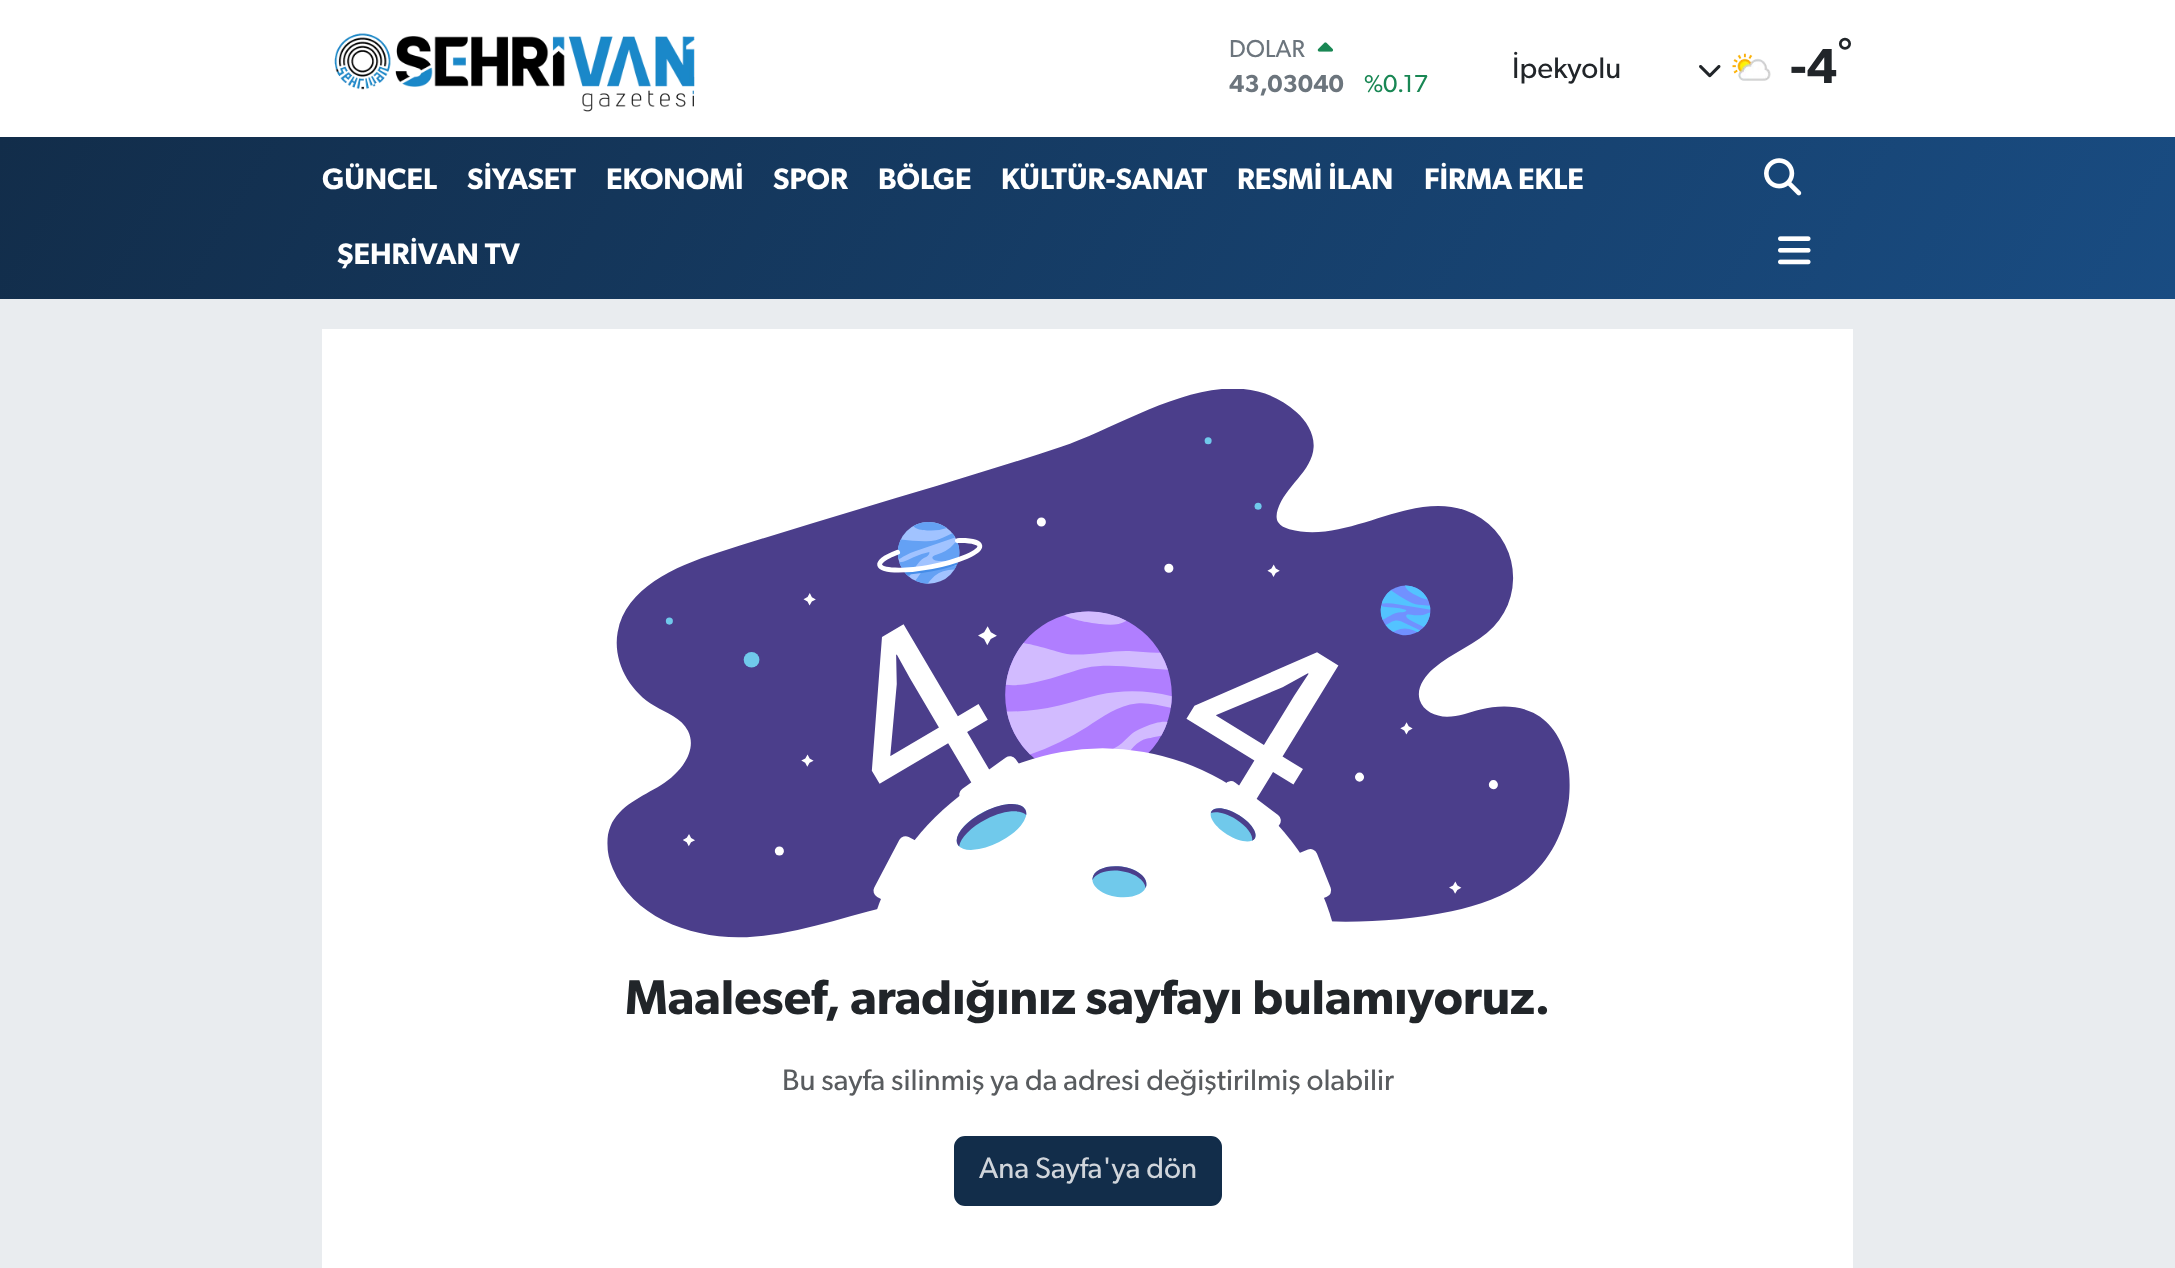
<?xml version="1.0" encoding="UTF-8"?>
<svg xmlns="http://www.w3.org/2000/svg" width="2175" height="1268">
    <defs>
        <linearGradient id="g1" gradientUnits="userSpaceOnUse" x1="237" y1="-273" x2="1939" y2="709"><stop offset="0" stop-color="#122D4A"/><stop offset="1" stop-color="#194C82"/></linearGradient>
    </defs>
    <rect width="100%" height="100%" fill="#E9ECEF"/>
    <rect x="0" y="0" width="2175" height="137" fill="#FFFFFF"/>
    <image x="334" y="33" width="361" height="79" href="img_01.png"/>
    <text x="1229" y="57" font-family="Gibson" font-size="24.5" fill="#6C757D">DOLAR</text>
    <image x="1317" y="42" width="16" height="10" href="img_02.png"/>
    <text x="1229" y="92" font-family="Gibson" font-size="24.5" font-weight="600" fill="#6C757D">43,03040</text>
    <text x="1364" y="92" font-family="Gibson" font-size="24.5" fill="#198754">%0.17</text>
    <text x="1512" y="78" font-family="Gibson" font-size="29.75" fill="#212529">İpekyolu</text>
    <image x="1699" y="65" width="22" height="13" href="img_03.png"/>
    <image x="1732" y="53" width="39" height="28" href="img_04.png"/>
    <text x="1837" y="65" font-family="Gibson" font-size="37" font-weight="600" fill="#212529">°</text>
    <text x="1790" y="83" font-family="Gibson" font-size="49" font-weight="600" fill="#212529">-4</text>
    <rect x="0" y="137" width="2175" height="162" fill="url(#g1)"/>
    <text x="322" y="189" font-family="Gibson" font-size="29.75" font-weight="600" fill="#FFFFFF">GÜNCEL</text>
    <text x="467" y="189" font-family="Gibson" font-size="29.75" font-weight="600" fill="#FFFFFF">SİYASET</text>
    <text x="606" y="189" font-family="Gibson" font-size="29.75" font-weight="600" fill="#FFFFFF">EKONOMİ</text>
    <text x="773" y="189" font-family="Gibson" font-size="29.75" font-weight="600" fill="#FFFFFF">SPOR</text>
    <text x="878" y="189" font-family="Gibson" font-size="29.75" font-weight="600" fill="#FFFFFF">BÖLGE</text>
    <text x="1001" y="189" font-family="Gibson" font-size="29.75" font-weight="600" fill="#FFFFFF">KÜLTÜR-SANAT</text>
    <text x="1237" y="189" font-family="Gibson" font-size="29.75" font-weight="600" fill="#FFFFFF">RESMİ İLAN</text>
    <text x="1424" y="189" font-family="Gibson" font-size="29.75" font-weight="600" fill="#FFFFFF">FİRMA EKLE</text>
    <text x="337" y="264" font-family="Gibson" font-size="29.75" font-weight="600" fill="#FFFFFF">ŞEHRİVAN TV</text>
    <image x="1764" y="158" width="38" height="38" href="img_05.png"/>
    <image x="1778" y="236" width="33" height="29" href="img_06.png"/>
    <rect x="322" y="329" width="1531" height="939" fill="#FFFFFF"/>
    <image x="607" y="389" width="963" height="549" href="img_07.png"/>
    <text x="625" y="1014" font-family="Gibson" font-size="49" font-weight="600" fill="#212529">Maalesef, aradığınız sayfayı bulamıyoruz.</text>
    <text x="782" y="1090" font-family="Gibson" font-size="29.75" fill="#595C5F">Bu sayfa silinmiş ya da adresi değiştirilmiş olabilir</text>
    <rect x="955" y="1137" width="266" height="68" rx="10" fill="#122D4A" stroke="#122D4A" stroke-width="2"/>
    <text x="979" y="1178" font-family="Gibson" font-size="29.75" fill="#D0D5DB">Ana Sayfa'ya dön</text>
</svg>
